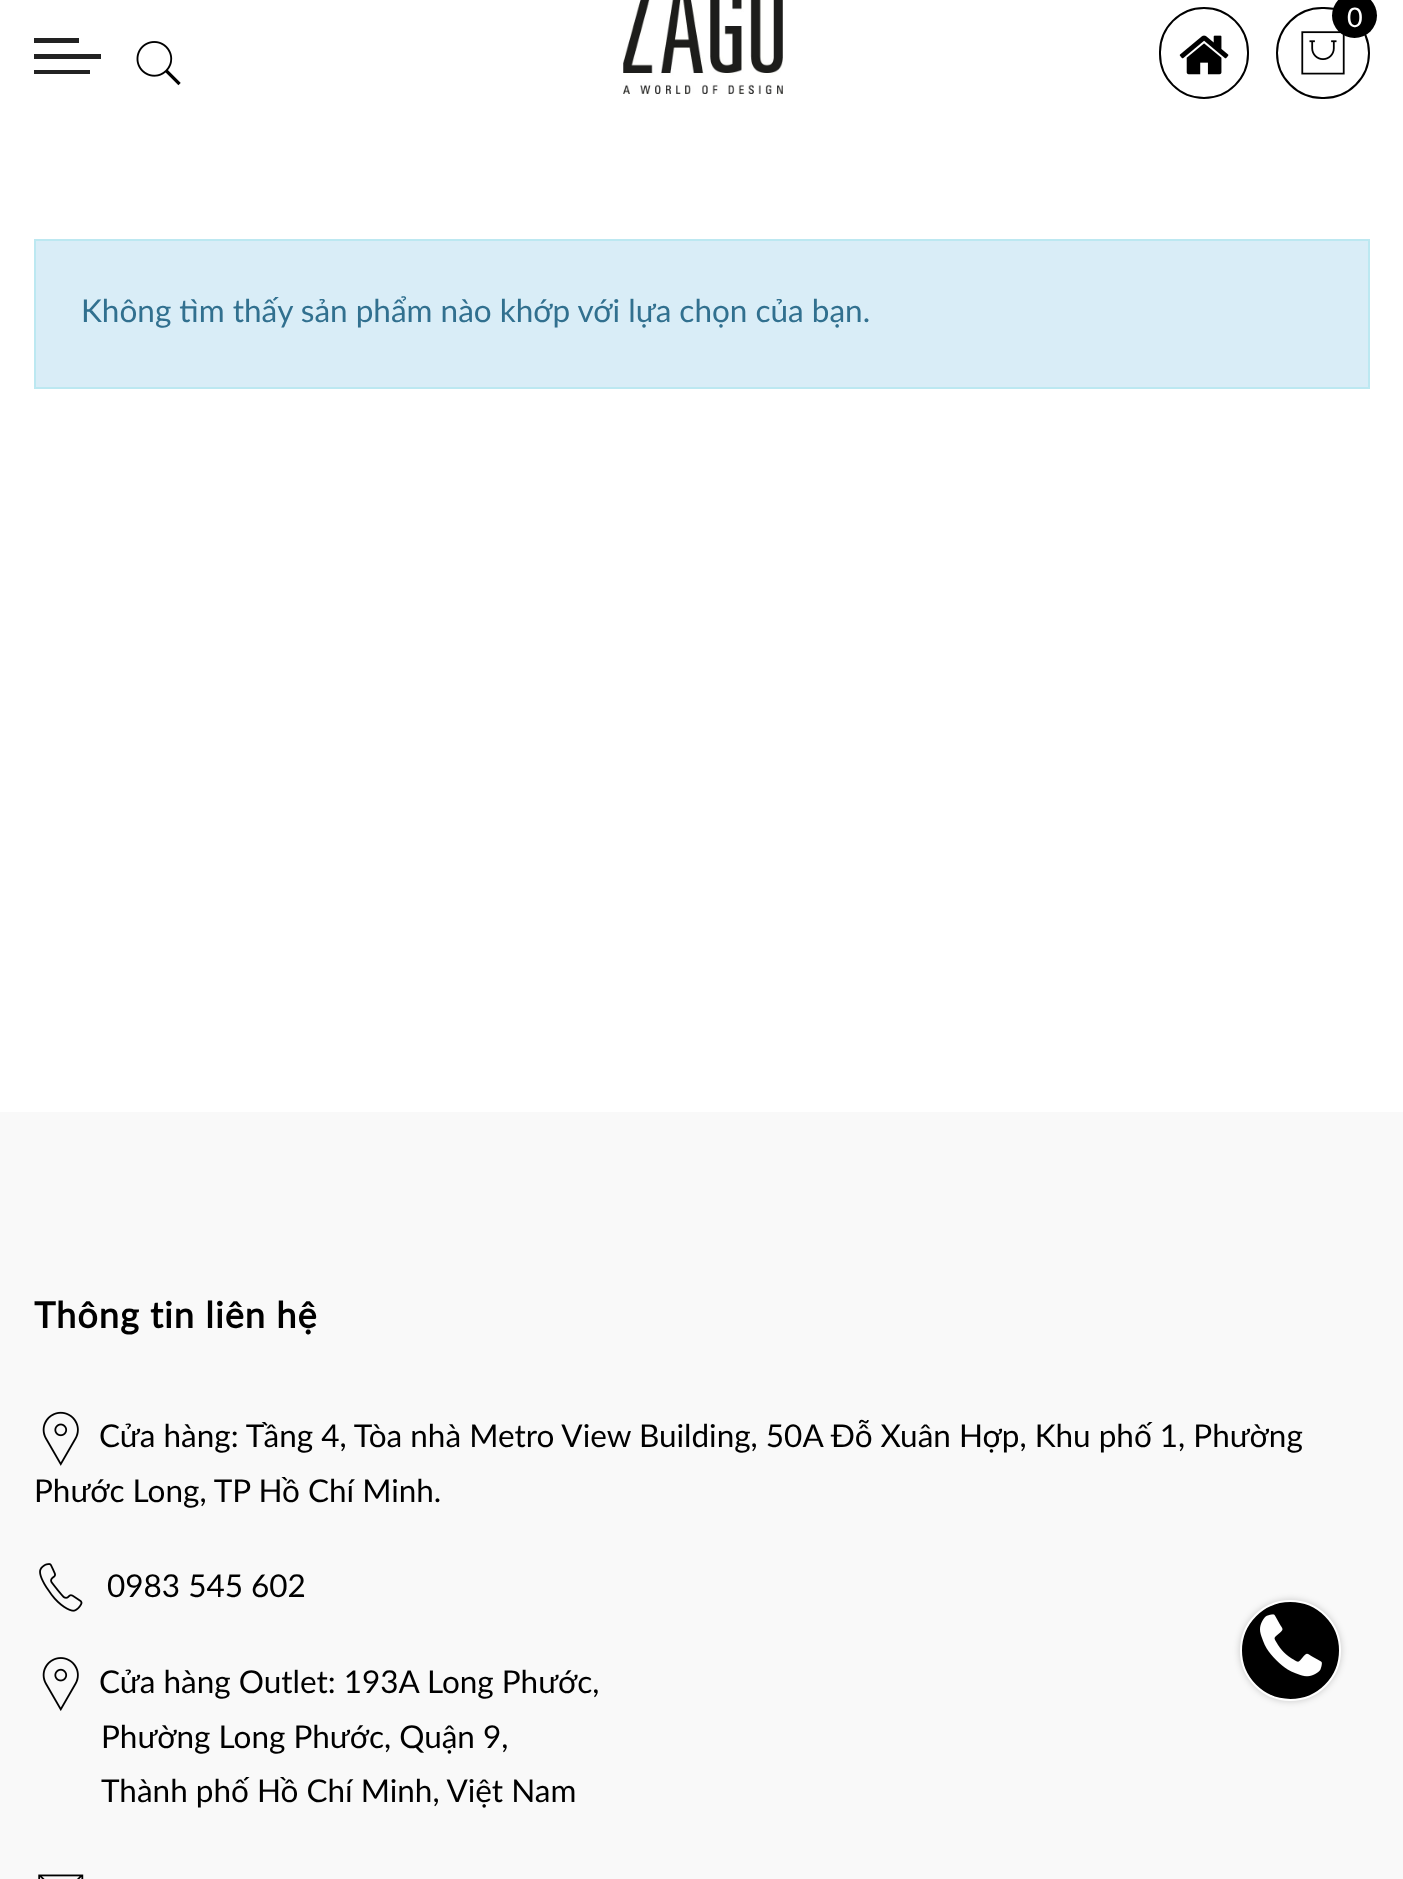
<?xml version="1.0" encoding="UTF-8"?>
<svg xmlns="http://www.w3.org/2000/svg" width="1403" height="1879">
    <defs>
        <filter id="blur1" x="-50%" y="-200%" width="200%" height="500%"><feGaussianBlur stdDeviation="3.5"/></filter>
    </defs>
    <rect width="100%" height="100%" fill="#FFFFFF"/>
    <image x="623" y="0" width="160" height="94" href="img_01.png"/>
    <rect x="1160" y="8" width="88" height="90" rx="44" fill="none" stroke="#000000" stroke-width="2"/>
    <image x="1179" y="35" width="50" height="40" href="img_02.png"/>
    <rect x="1277" y="8" width="92" height="90" rx="45" fill="none" stroke="#000000" stroke-width="2"/>
    <image x="1301" y="31" width="44" height="44" href="img_03.png"/>
    <circle cx="1354.5" cy="15.5" r="22.5" fill="#000000"/>
    <text x="1347" y="27" font-family="Lato" font-size="27" fill="#FFFFFF">0</text>
    <rect x="34" y="38" width="45" height="5" fill="#222222"/>
    <rect x="34" y="54" width="67" height="5" fill="#222222"/>
    <rect x="34" y="70" width="56" height="4" fill="#222222"/>
    <image x="136" y="41" width="45" height="45" href="img_04.png"/>
    <rect x="35" y="240" width="1334" height="148" fill="#D9EDF7" stroke="#BCE8F1" stroke-width="2"/>
    <text x="81" y="322" font-family="Lato" font-size="31.5" fill="#31708F">Không tìm thấy sản phẩm nào khớp với lựa chọn của bạn.</text>
    <rect x="0" y="1112" width="1403" height="767" fill="#F9F9F9"/>
    <text x="34" y="1328" font-family="Lato" font-size="36" font-weight="700" letter-spacing="1.1" fill="#000000">Thông tin liên hệ</text>
    <image x="42" y="1411" width="37" height="55" href="img_05.png"/>
    <text x="99" y="1447" font-family="Lato" font-size="31.5" fill="#000000">Cửa hàng: Tầng 4, Tòa nhà Metro View Building, 50A Đỗ Xuân Hợp, Khu phố 1, Phường</text>
    <text x="34" y="1502" font-family="Lato" font-size="31.5" fill="#000000">Phước Long, TP Hồ Chí Minh.</text>
    <image x="39" y="1563" width="44" height="49" href="img_06.png"/>
    <text x="107" y="1597" font-family="Lato" font-size="31.5" fill="#000000">0983 545 602</text>
    <image x="42" y="1657" width="37" height="54" href="img_07.png"/>
    <text x="99" y="1693" font-family="Lato" font-size="31.5" fill="#000000">Cửa hàng Outlet: 193A Long Phước,</text>
    <text font-family="Lato" font-size="31.5" fill="#000000">
        <tspan x="101" y="1748">Phường Long Phước, Quận 9,</tspan>
        <tspan x="101" y="1802">Thành phố Hồ Chí Minh, Việt Nam</tspan>
    </text>
    <image x="38" y="1874" width="46" height="5" href="img_08.png"/>
    <rect x="1240" y="1600" width="101" height="101" rx="50.5" fill="#000000" fill-opacity="0.2" filter="url(#blur1)"/>
    <circle cx="1290.5" cy="1650.5" r="49.5" fill="#000000" stroke="#FFFFFF" stroke-width="2"/>
    <image x="1260" y="1614" width="62" height="63" href="img_09.png"/>
</svg>
